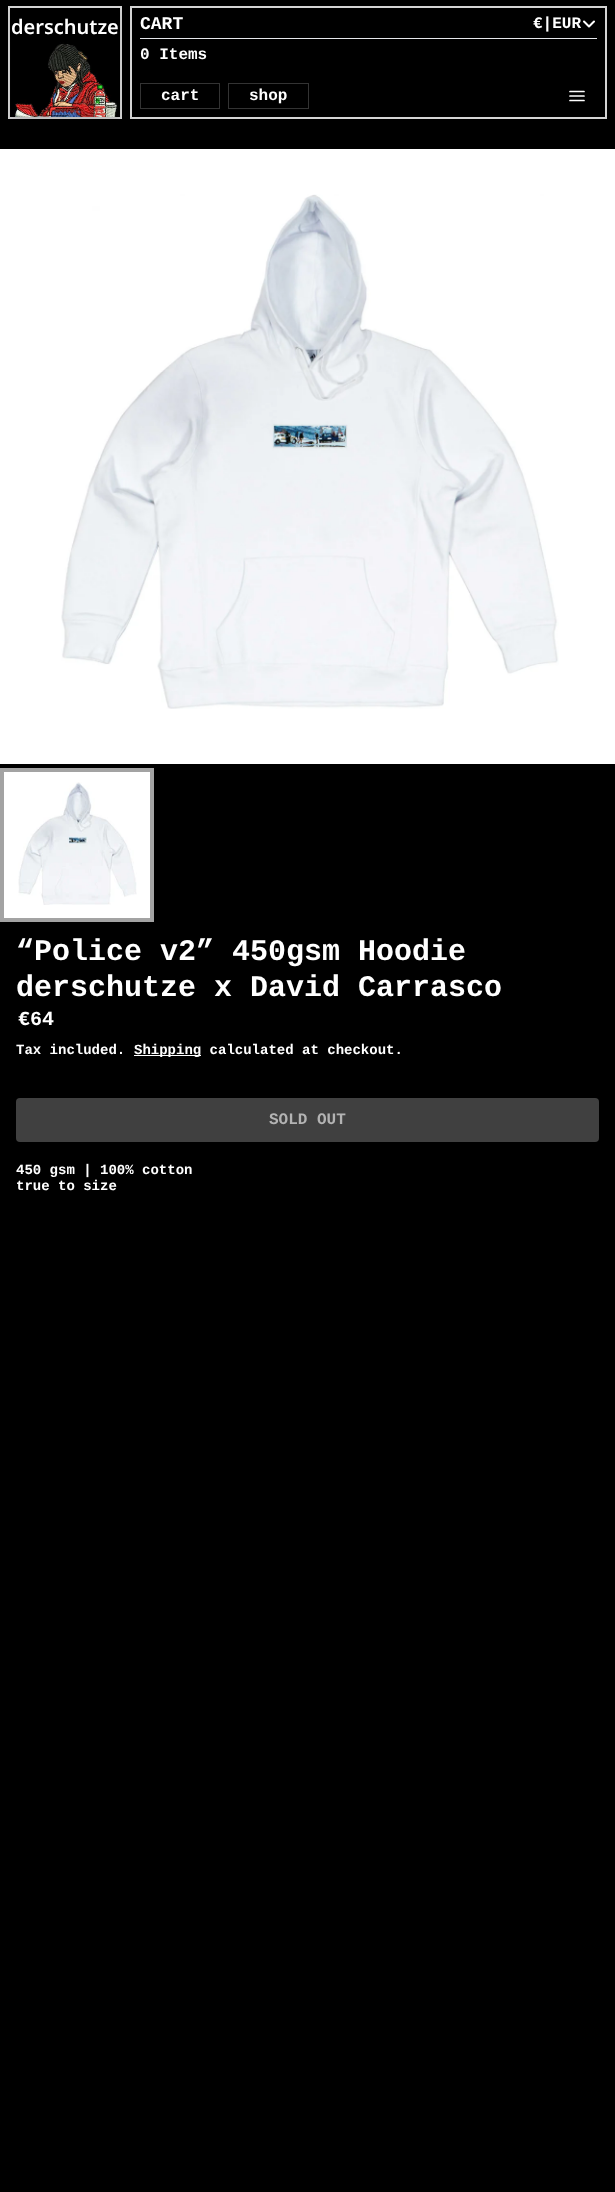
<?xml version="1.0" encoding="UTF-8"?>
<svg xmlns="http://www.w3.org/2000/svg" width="615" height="2192">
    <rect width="100%" height="100%" fill="#000000"/>
    <rect x="120" y="7" width="2" height="112" fill="#D4D4D4"/>
    <rect x="8" y="117" width="114" height="2" fill="#D4D4D4"/>
    <rect x="8" y="7" width="2" height="112" fill="#D4D4D4"/>
    <image x="8" y="9" width="114" height="110" href="img_01.png"/>
    <rect x="8" y="6" width="114" height="2" fill="#D4D4D4"/>
    <text x="11" y="34" font-family="Noto Sans" font-size="20" font-weight="600" fill="#FFFFFF">derschutze</text>
    <rect x="130" y="6" width="477" height="2" fill="#D4D4D4"/>
    <rect x="605" y="8" width="2" height="111" fill="#D4D4D4"/>
    <rect x="130" y="117" width="477" height="2" fill="#D4D4D4"/>
    <rect x="130" y="8" width="2" height="111" fill="#D4D4D4"/>
    <text x="140" y="29" font-family="Liberation Mono" font-size="18" font-weight="700" fill="#FFFFFF">CART</text>
    <text x="533" y="28" font-family="Liberation Mono" font-size="16" font-weight="700" fill="#FFFFFF">€|EUR</text>
    <path d="M 594 21.5 L 589 26.5 L 584 21.5" fill="none" stroke="#FFFFFF" stroke-width="2" stroke-linecap="round" stroke-linejoin="round"/>
    <rect x="140" y="38" width="457" height="1" fill="#E5E7EB"/>
    <text x="140" y="59" font-family="Liberation Mono" font-size="16" font-weight="700" fill="#FFFFFF">0 Items</text>
    <rect x="140.5" y="83.5" width="79" height="25" fill="none" stroke="#333333"/>
    <text x="161" y="100" font-family="Liberation Mono" font-size="16" font-weight="700" fill="#FFFFFF">cart</text>
    <rect x="228.5" y="83.5" width="80" height="25" fill="none" stroke="#333333"/>
    <text x="249" y="100" font-family="Liberation Mono" font-size="16" font-weight="700" fill="#FFFFFF">shop</text>
    <path d="M 570 91.5 H 584 M 570 96 H 584 M 570 100.5 H 584" fill="none" stroke="#FFFFFF" stroke-width="1.7" stroke-linecap="round" stroke-linejoin="round"/>
    <rect x="0" y="149" width="615" height="615" fill="#FFFFFF"/>
    <image x="61" y="194" width="498" height="515" href="img_02.png"/>
    <rect x="2" y="770" width="150" height="150" fill="none" stroke="#A3A3A3" stroke-width="4"/>
    <rect x="4" y="772" width="146" height="146" fill="#FFFFFF"/>
    <image x="18" y="782" width="119" height="123" href="img_03.png"/>
    <text font-family="Liberation Mono" font-size="30" font-weight="700" fill="#FFFFFF">
        <tspan x="16" y="960">“Police v2” 450gsm Hoodie</tspan>
        <tspan x="16" y="996">derschutze x David Carrasco</tspan>
    </text>
    <text x="18" y="1025" font-family="Liberation Mono" font-size="20" font-weight="700" fill="#FFFFFF">€64</text>
    <text x="16" y="1054" font-family="Liberation Mono" font-size="14" font-weight="700" fill="#FFFFFF">Tax included.</text>
    <rect x="134" y="1055" width="67" height="1" fill="#FFFFFF"/>
    <text x="134" y="1054" font-family="Liberation Mono" font-size="14" font-weight="700" fill="#FFFFFF">Shipping calculated at checkout.</text>
    <rect x="16" y="1098" width="583" height="44" rx="4" fill="#404040"/>
    <text x="269" y="1124" font-family="Liberation Mono" font-size="16" font-weight="700" fill="#B3B3B3">SOLD OUT</text>
    <text font-family="Liberation Mono" font-size="14" font-weight="700" fill="#FFFFFF">
        <tspan x="16" y="1174">450 gsm | 100% cotton</tspan>
        <tspan x="16" y="1190">true to size</tspan>
    </text>
</svg>
